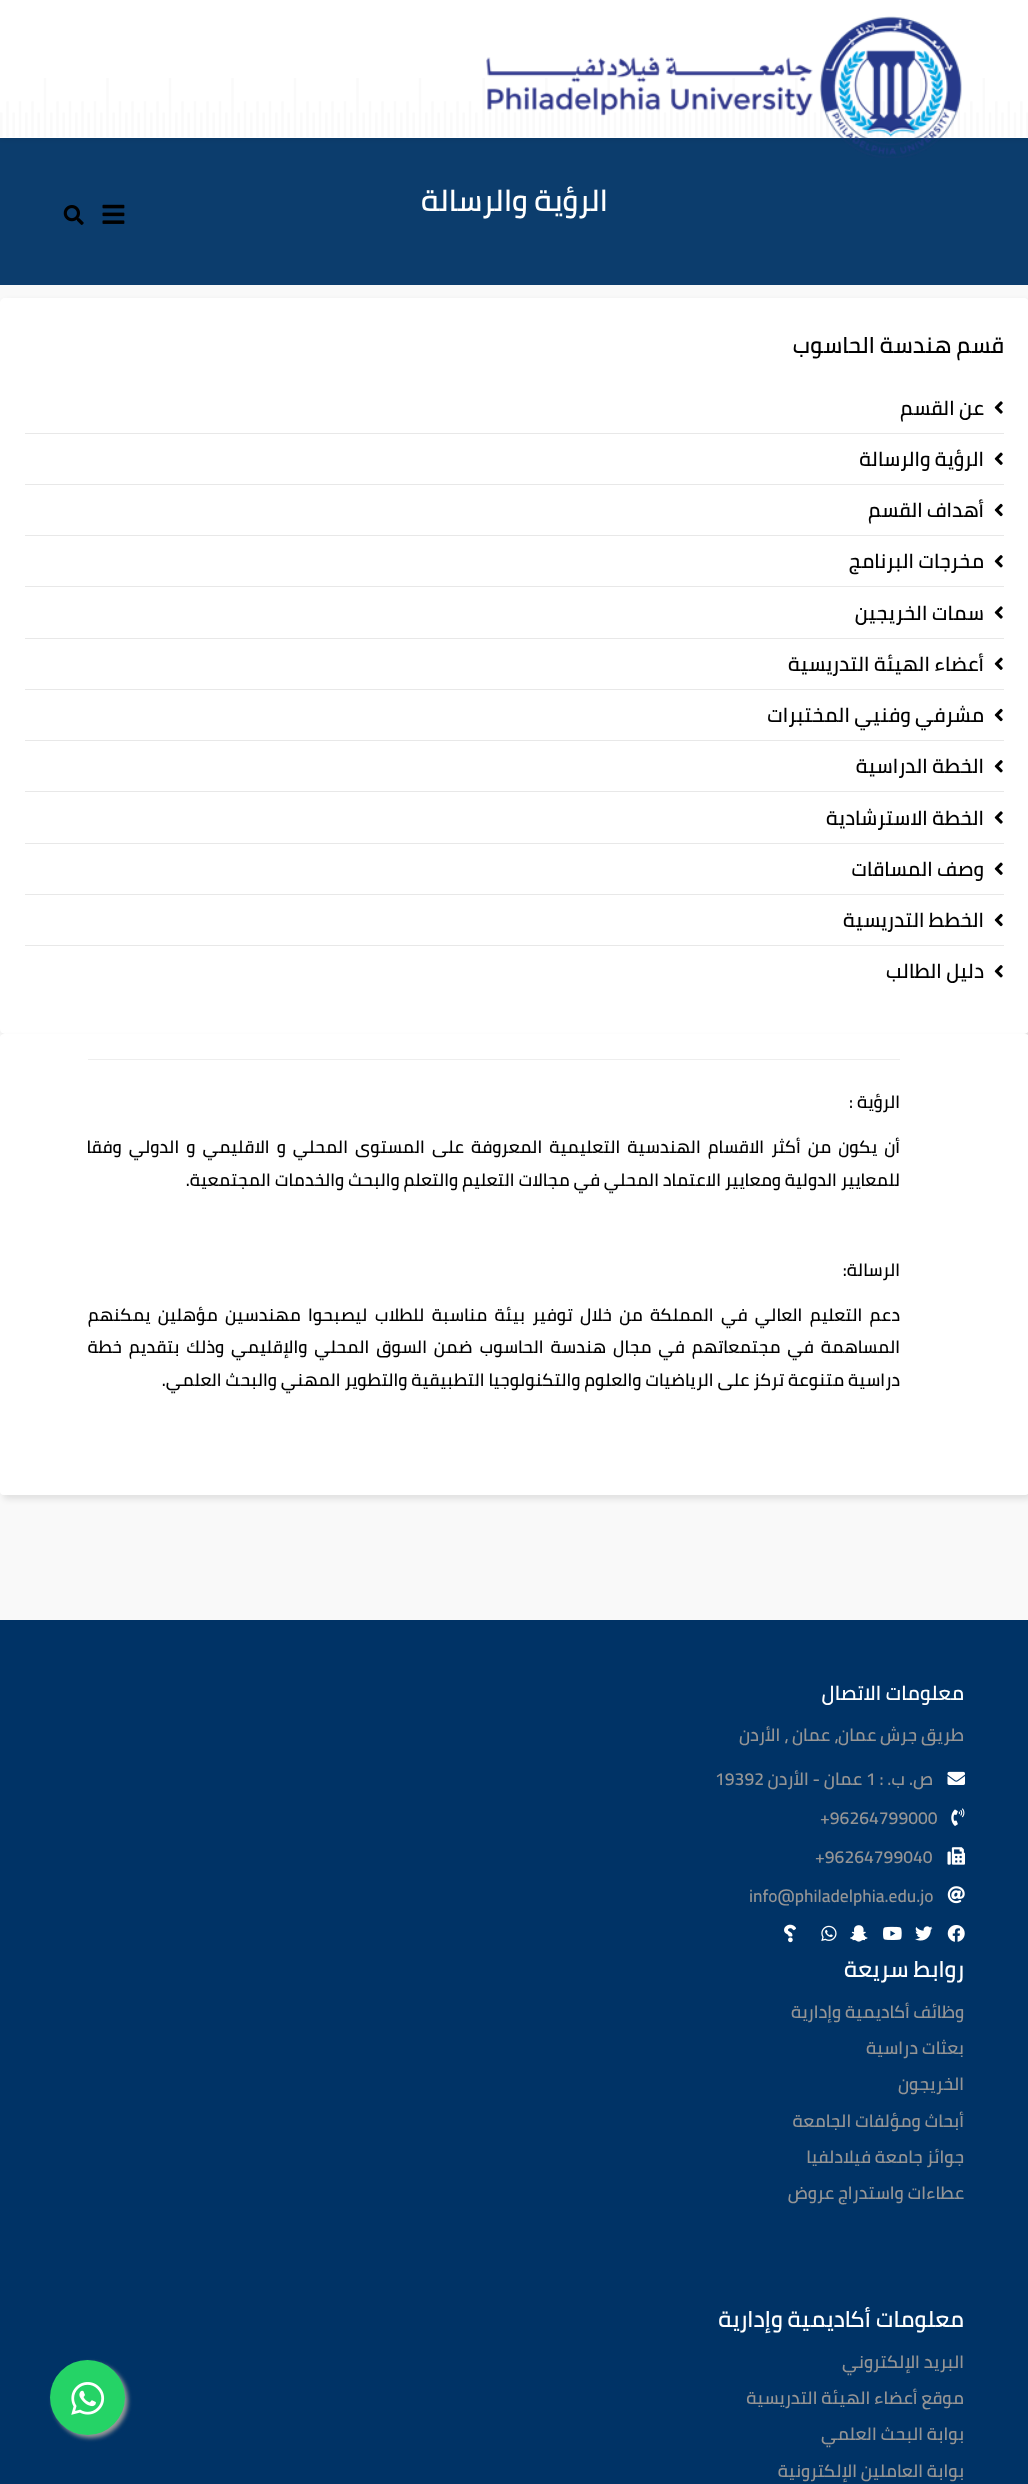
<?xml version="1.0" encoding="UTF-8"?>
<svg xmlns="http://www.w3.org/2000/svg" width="1028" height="2484">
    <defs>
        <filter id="blur1" x="-50%" y="-200%" width="200%" height="500%"><feGaussianBlur stdDeviation="2"/></filter>
        <filter id="blur2" x="-50%" y="-200%" width="200%" height="500%"><feGaussianBlur stdDeviation="3"/></filter>
    </defs>
    <rect width="100%" height="100%" fill="#F9F9F9"/>
    <rect x="0" y="138" width="1028" height="147" fill="#0C3D6D"/>
    <rect x="0" y="4" width="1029" height="137" fill="#000000" fill-opacity="0.05" filter="url(#blur1)"/>
    <rect x="0" y="0" width="1028" height="138" fill="#FFFFFF"/>
    <image x="0" y="78" width="1028" height="59" href="img_01.png"/>
    <image x="486" y="16" width="476" height="142" href="img_02.png"/>
    <image x="102" y="204" width="23" height="20" href="img_03.png"/>
    <image x="63" y="205" width="21" height="20" href="img_04.png"/>
    <text x="608" y="211" font-family="Cairo" font-size="30" font-weight="600" direction="rtl" fill="#FFFFFF">الرؤية والرسالة</text>
    <rect x="3" y="301" width="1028" height="737" rx="5" fill="#000000" fill-opacity="0.1" filter="url(#blur2)"/>
    <rect x="0" y="298" width="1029" height="736" rx="5" fill="#FFFFFF"/>
    <text x="1004" y="353" font-family="Cairo" font-size="22.5" font-weight="600" direction="rtl" fill="#000000">قسم هندسة الحاسوب</text>
    <rect x="25" y="433" width="979" height="1" fill="#E8E8E8"/>
    <image x="994" y="401" width="9" height="13" href="img_05.png"/>
    <text x="984" y="415" font-family="Cairo" font-size="20" font-weight="600" direction="rtl" fill="#000000">عن القسم</text>
    <rect x="25" y="484" width="979" height="1" fill="#E8E8E8"/>
    <image x="994" y="452" width="9" height="13" href="img_06.png"/>
    <text x="984" y="466" font-family="Cairo" font-size="20" font-weight="600" direction="rtl" fill="#000000">الرؤية والرسالة</text>
    <rect x="25" y="535" width="979" height="1" fill="#E8E8E8"/>
    <image x="994" y="503" width="9" height="14" href="img_07.png"/>
    <text x="984" y="517" font-family="Cairo" font-size="20" font-weight="600" direction="rtl" fill="#000000">أهداف القسم</text>
    <rect x="25" y="586" width="979" height="1" fill="#E8E8E8"/>
    <image x="994" y="555" width="9" height="13" href="img_08.png"/>
    <text x="984" y="568" font-family="Cairo" font-size="20" font-weight="600" direction="rtl" fill="#000000">مخرجات البرنامج</text>
    <rect x="25" y="638" width="979" height="1" fill="#E8E8E8"/>
    <image x="994" y="606" width="9" height="13" href="img_05.png"/>
    <text x="984" y="620" font-family="Cairo" font-size="20" font-weight="600" direction="rtl" fill="#000000">سمات الخريجين</text>
    <rect x="25" y="689" width="979" height="1" fill="#E8E8E8"/>
    <image x="994" y="657" width="9" height="13" href="img_06.png"/>
    <text x="984" y="671" font-family="Cairo" font-size="20" font-weight="600" direction="rtl" fill="#000000">أعضاء الهيئة التدريسية</text>
    <rect x="25" y="740" width="979" height="1" fill="#E8E8E8"/>
    <image x="994" y="708" width="9" height="14" href="img_07.png"/>
    <text x="984" y="722" font-family="Cairo" font-size="20" font-weight="600" direction="rtl" fill="#000000">مشرفي وفنيي المختبرات</text>
    <rect x="25" y="791" width="979" height="1" fill="#E8E8E8"/>
    <image x="994" y="760" width="9" height="13" href="img_08.png"/>
    <text x="984" y="773" font-family="Cairo" font-size="20" font-weight="600" direction="rtl" fill="#000000">الخطة الدراسية</text>
    <rect x="25" y="843" width="979" height="1" fill="#E8E8E8"/>
    <image x="994" y="811" width="9" height="13" href="img_05.png"/>
    <text x="984" y="825" font-family="Cairo" font-size="20" font-weight="600" direction="rtl" fill="#000000">الخطة الاسترشادية</text>
    <rect x="25" y="894" width="979" height="1" fill="#E8E8E8"/>
    <image x="994" y="862" width="9" height="13" href="img_06.png"/>
    <text x="984" y="876" font-family="Cairo" font-size="20" font-weight="600" direction="rtl" fill="#000000">وصف المساقات</text>
    <rect x="25" y="945" width="979" height="1" fill="#E8E8E8"/>
    <image x="994" y="913" width="9" height="14" href="img_07.png"/>
    <text x="984" y="927" font-family="Cairo" font-size="20" font-weight="600" direction="rtl" fill="#000000">الخطط التدريسية</text>
    <image x="994" y="965" width="9" height="13" href="img_08.png"/>
    <text x="984" y="978" font-family="Cairo" font-size="20" font-weight="600" direction="rtl" fill="#000000">دليل الطالب</text>
    <rect x="3" y="1038" width="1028" height="461" rx="4" fill="#000000" fill-opacity="0.1" filter="url(#blur2)"/>
    <rect x="0" y="1034" width="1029" height="461" rx="4" fill="#FFFFFF"/>
    <rect x="88" y="1059" width="812" height="1" fill="#EEEEEE"/>
    <text x="900" y="1108" font-family="Cairo" font-size="17.5" font-weight="600" direction="rtl" fill="#000000">الرؤية :</text>
    <text font-family="Cairo" font-size="17.5" font-weight="600" direction="rtl" fill="#000000">
        <tspan x="900" y="1153" word-spacing="3.25">أن يكون من أكثر الاقسام الهندسية التعليمية المعروفة على المستوى المحلي و الاقليمي و الدولي وفقا</tspan>
        <tspan x="900" y="1186">للمعايير الدولية ومعايير الاعتماد المحلي في مجالات التعليم والتعلم والبحث والخدمات المجتمعية.</tspan>
    </text>
    <text x="900" y="1276" font-family="Cairo" font-size="17.5" font-weight="600" direction="rtl" fill="#000000">الرسالة:</text>
    <text font-family="Cairo" font-size="17.5" font-weight="600" direction="rtl" fill="#000000">
        <tspan x="900" y="1321" word-spacing="3.5">دعم التعليم العالي في المملكة من خلال توفير بيئة مناسبة للطلاب ليصبحوا مهندسين مؤهلين يمكنهم</tspan>
        <tspan x="900" y="1353" word-spacing="3.1">المساهمة في مجتمعاتهم في مجال هندسة الحاسوب ضمن السوق المحلي والإقليمي وذلك بتقديم خطة</tspan>
        <tspan x="900" y="1386">دراسية متنوعة تركز على الرياضيات والعلوم والتكنولوجيا التطبيقية والتطوير المهني والبحث العلمي.</tspan>
    </text>
    <rect x="0" y="1620" width="1028" height="864" fill="#003366"/>
    <text x="964" y="1700" font-family="Cairo" font-size="20" font-weight="600" direction="rtl" fill="#FFFFFF">معلومات الاتصال</text>
    <text x="964" y="1741" font-family="Cairo" font-size="17.5" font-weight="600" direction="rtl" fill="#959595">طريق جرش عمان، عمان ، الأردن</text>
    <image x="947" y="1771" width="18" height="14" href="img_09.png"/>
    <text x="933" y="1785" font-family="Cairo" font-size="17.5" font-weight="600" direction="rtl" fill="#959595">ص. ب. :</text>
    <text x="866" y="1785" font-family="Cairo" font-size="17.5" font-weight="600" fill="#959595">1</text>
    <text x="862" y="1785" font-family="Cairo" font-size="17.5" font-weight="600" direction="rtl" fill="#959595">عمان - الأردن</text>
    <text x="715" y="1785" font-family="Cairo" font-size="17.5" font-weight="600" fill="#959595">19392</text>
    <image x="951" y="1808" width="14" height="18" href="img_10.png"/>
    <text x="820" y="1824" font-family="Cairo" font-size="17.5" font-weight="600" fill="#959595">+96264799000</text>
    <image x="947" y="1847" width="18" height="18" href="img_11.png"/>
    <text x="815" y="1863" font-family="Cairo" font-size="17.5" font-weight="600" fill="#959595">+96264799040</text>
    <image x="947" y="1886" width="18" height="18" href="img_12.png"/>
    <text x="749" y="1902" font-family="Cairo" font-size="17.5" font-weight="600" fill="#959595">info@philadelphia.edu.jo</text>
    <image x="947" y="1925" width="18" height="17" href="img_13.png"/>
    <image x="915" y="1926" width="18" height="15" href="img_14.png"/>
    <image x="883" y="1926" width="19" height="14" href="img_15.png"/>
    <image x="850" y="1925" width="18" height="17" href="img_16.png"/>
    <image x="821" y="1925" width="16" height="16" href="img_17.png"/>
    <image x="784" y="1924" width="12" height="19" href="img_18.png"/>
    <text x="964" y="1977" font-family="Cairo" font-size="22.5" font-weight="600" direction="rtl" fill="#FFFFFF">روابط سريعة</text>
    <text x="964" y="2018" font-family="Cairo" font-size="17.5" font-weight="600" direction="rtl" fill="#959595">وظائف أكاديمية وإدارية</text>
    <text x="964" y="2054" font-family="Cairo" font-size="17.5" font-weight="600" direction="rtl" fill="#959595">بعثات دراسية</text>
    <text x="964" y="2090" font-family="Cairo" font-size="17.5" font-weight="600" direction="rtl" fill="#959595">الخريجون</text>
    <text x="964" y="2127" font-family="Cairo" font-size="17.5" font-weight="600" direction="rtl" fill="#959595">أبحاث ومؤلفات الجامعة</text>
    <text x="964" y="2163" font-family="Cairo" font-size="17.5" font-weight="600" direction="rtl" fill="#959595">جوائز جامعة فيلادلفيا</text>
    <text x="964" y="2199" font-family="Cairo" font-size="17.5" font-weight="600" direction="rtl" fill="#959595">عطاءات واستدراج عروض</text>
    <text x="964" y="2327" font-family="Cairo" font-size="22.5" font-weight="600" direction="rtl" fill="#FFFFFF">معلومات أكاديمية وإدارية</text>
    <text x="964" y="2368" font-family="Cairo" font-size="17.5" font-weight="600" direction="rtl" fill="#959595">البريد الإلكتروني</text>
    <text x="964" y="2404" font-family="Cairo" font-size="17.5" font-weight="600" direction="rtl" fill="#959595">موقع أعضاء الهيئة التدريسية</text>
    <text x="964" y="2440" font-family="Cairo" font-size="17.5" font-weight="600" direction="rtl" fill="#959595">بوابة البحث العلمي</text>
    <text x="964" y="2477" font-family="Cairo" font-size="17.5" font-weight="600" direction="rtl" fill="#959595">بوابة العاملين الإلكترونية</text>
    <rect x="53" y="2363" width="75" height="75" rx="37.5" fill="#999999" filter="url(#blur1)"/>
    <circle cx="87.5" cy="2397.5" r="37.5" fill="#25D366"/>
    <image x="71" y="2382" width="34" height="33" href="img_19.png"/>
</svg>
